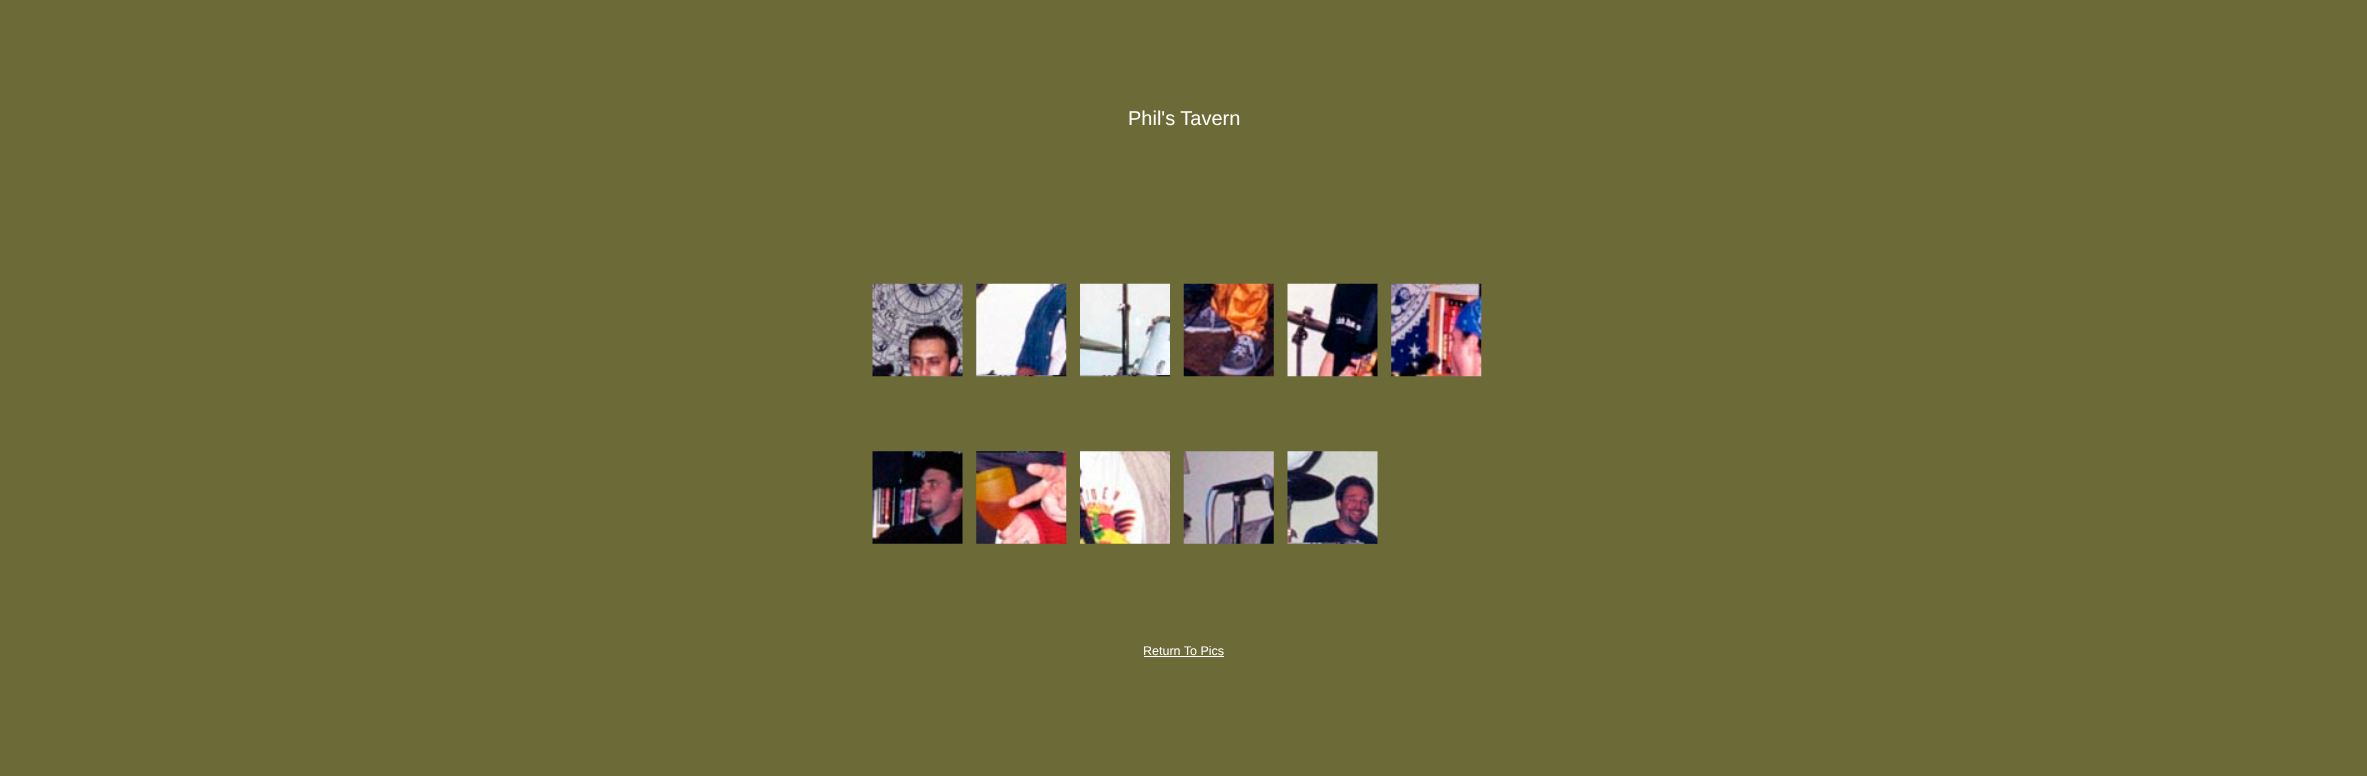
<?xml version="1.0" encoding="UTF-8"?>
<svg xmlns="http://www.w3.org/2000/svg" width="2367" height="776">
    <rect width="100%" height="100%" fill="#6C6B38"/>
    <text x="1128" y="125" font-family="Liberation Sans" font-size="20" fill="#FFFFFF">Phil's Tavern</text>
    <image x="872" y="283" width="91" height="94" href="img_01.png"/>
    <image x="976" y="283" width="91" height="94" href="img_02.png"/>
    <image x="1080" y="283" width="90" height="94" href="img_03.png"/>
    <image x="1183" y="283" width="91" height="94" href="img_04.png"/>
    <image x="1287" y="283" width="91" height="94" href="img_05.png"/>
    <image x="1391" y="283" width="91" height="94" href="img_06.png"/>
    <image x="872" y="451" width="91" height="93" href="img_07.png"/>
    <image x="976" y="451" width="91" height="93" href="img_08.png"/>
    <image x="1080" y="451" width="90" height="93" href="img_09.png"/>
    <image x="1183" y="451" width="91" height="93" href="img_10.png"/>
    <image x="1287" y="451" width="91" height="93" href="img_11.png"/>
    <text x="1143" y="655" font-family="Liberation Sans" font-size="12.5" fill="#FFFFFF">Return To Pics</text>
    <rect x="1144" y="656" width="80" height="1" fill="#FFFFFF"/>
</svg>
